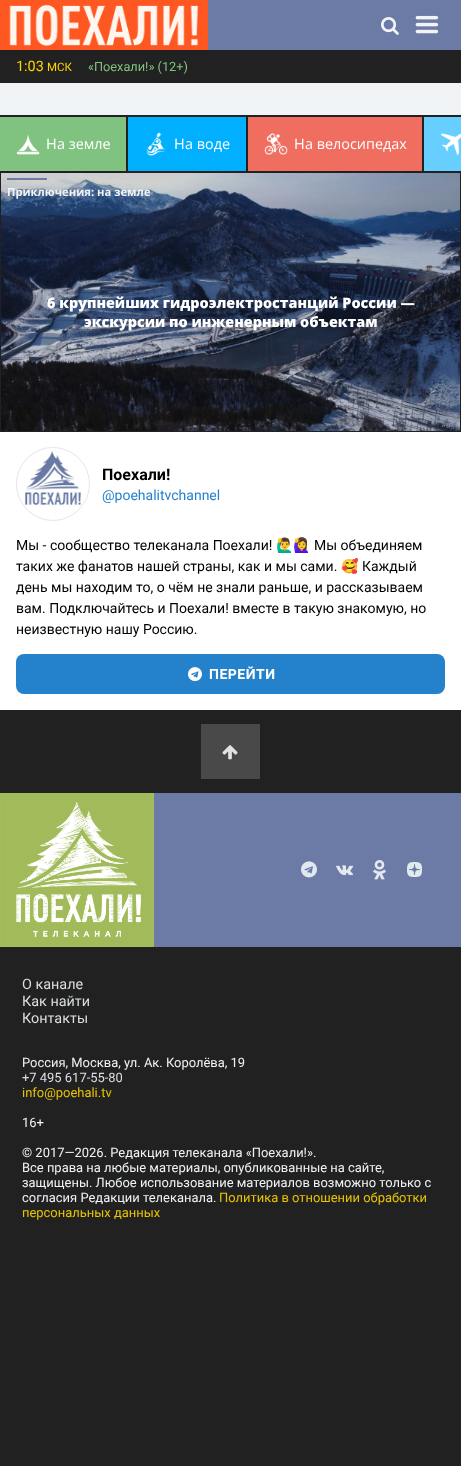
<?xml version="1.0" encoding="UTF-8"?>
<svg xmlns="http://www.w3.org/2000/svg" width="461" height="1466">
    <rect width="100%" height="100%" fill="#212121"/>
    <rect x="208" y="0" width="253" height="50" fill="#6B7BA5"/>
    <rect x="0" y="0" width="208" height="50" fill="#FF5722"/>
    <image x="9" y="5" width="190" height="41" href="img_01.png"/>
    <image x="381" y="17" width="18" height="18" href="img_02.png"/>
    <image x="415" y="15" width="24" height="19" href="img_03.png"/>
    <text x="16" y="71" font-family="Roboto" font-size="14.4" fill="#FFD600">1:03</text>
    <text x="47" y="71" font-family="Roboto" font-size="11.5" fill="#FFD600">МСК</text>
    <text x="88" y="71" font-family="Roboto" font-size="12.75" fill="#80C380">«Поехали!» (12+)</text>
    <rect x="0" y="83" width="461" height="32" fill="#F0F4F7"/>
    <rect x="0" y="117" width="126" height="54" fill="#80C380"/>
    <image x="16" y="134" width="24" height="21" href="img_04.png"/>
    <text x="46" y="149" font-family="Noto Sans" font-size="14.4" fill="#FFFFFF">Н</text>
    <text x="57" y="149" font-family="Open Sans" font-size="14.4" fill="#FFFFFF">а земле</text>
    <rect x="128" y="117" width="118" height="54" fill="#00B0FF"/>
    <image x="146" y="132" width="20" height="24" href="img_05.png"/>
    <text x="174" y="149" font-family="Noto Sans" font-size="14.4" fill="#FFFFFF">Н</text>
    <text x="185" y="149" font-family="Open Sans" font-size="14.4" fill="#FFFFFF">а воде</text>
    <rect x="248" y="117" width="174" height="54" fill="#EF6E5F"/>
    <image x="264" y="133" width="24" height="22" href="img_06.png"/>
    <text x="294" y="149" font-family="Noto Sans" font-size="14.4" fill="#FFFFFF">Н</text>
    <text x="305" y="149" font-family="Open Sans" font-size="14.4" fill="#FFFFFF">а велосипедах</text>
    <rect x="424" y="117" width="37" height="54" fill="#66CFFF"/>
    <image x="440" y="133" width="21" height="23" href="img_07.png"/>
    <image x="1" y="173" width="459" height="258" href="img_08.png"/>
    <rect x="7" y="178" width="40" height="2" fill="#6B7BA5"/>
    <text x="7" y="196" font-family="Open Sans" font-size="11.25" font-weight="700" fill="#F0F4F7">Приключения: на земле</text>
    <text x="47" y="308" font-family="Open Sans" font-size="14.4" font-weight="800" fill="#FFFFFF">6 крупнейших гидроэлектростанций России —</text>
    <text x="84" y="327" font-family="Open Sans" font-size="14.4" font-weight="800" fill="#FFFFFF">экскурсии по инженерным объектам</text>
    <rect x="0" y="432" width="461" height="278" fill="#FFFFFF"/>
    <circle cx="53" cy="484" r="36.5" fill="#EEEEEE" stroke="#E6E6E6"/>
    <image x="17" y="448" width="72" height="72" href="img_09.png"/>
    <text x="102" y="480" font-family="Roboto" font-size="16" font-weight="700" fill="#000000">Поехали!</text>
    <text x="102" y="500" font-family="Roboto" font-size="14" fill="#2481CC">@poehalitvchannel</text>
    <text x="16" y="550" font-family="Roboto" font-size="14" fill="#000000">Мы - сообщество телеканала Поехали!</text>
    <text x="276" y="550" font-family="Noto Color Emoji" font-size="14" fill="#000000">🙋‍♂️🙋‍♀️</text>
    <text x="314" y="550" font-family="Roboto" font-size="14" fill="#000000">Мы объединяем</text>
    <text x="16" y="571" font-family="Roboto" font-size="14" fill="#000000">таких же фанатов нашей страны, как и мы сами.</text>
    <text x="341" y="571" font-family="Noto Color Emoji" font-size="14" fill="#000000">🥰</text>
    <text x="362" y="571" font-family="Roboto" font-size="14" fill="#000000">Каждый</text>
    <text font-family="Roboto" font-size="14" fill="#000000">
        <tspan x="16" y="592">день мы находим то, о чём не знали раньше, и рассказываем</tspan>
        <tspan x="16" y="613">вам. Подключайтесь и Поехали! вместе в такую знакомую, но</tspan>
        <tspan x="16" y="634">неизвестную нашу Россию.</tspan>
    </text>
    <rect x="16" y="654" width="429" height="40" rx="8" fill="#2481CC"/>
    <image x="188" y="667" width="14" height="15" href="img_10.png"/>
    <text x="209" y="679" font-family="Roboto" font-size="14" font-weight="700" letter-spacing="0.5" fill="#FFFFFF">ПЕРЕЙТИ</text>
    <rect x="201" y="724" width="59" height="55" fill="#494949"/>
    <image x="222" y="745" width="16" height="15" href="img_11.png"/>
    <image x="0" y="793" width="154" height="154" href="img_12.png"/>
    <rect x="154" y="793" width="307" height="154" fill="#6B7BA5"/>
    <image x="301" y="861" width="16" height="17" href="img_13.png"/>
    <image x="336" y="865" width="18" height="11" href="img_14.png"/>
    <image x="373" y="860" width="13" height="20" href="img_15.png"/>
    <image x="407" y="862" width="15" height="15" href="img_16.png"/>
    <text font-family="Roboto" font-size="14.4" fill="#DBDFE2">
        <tspan x="22" y="989">О канале</tspan>
        <tspan x="22" y="1006">Как найти</tspan>
        <tspan x="22" y="1023">Контакты</tspan>
    </text>
    <text x="22" y="1067" font-family="Roboto" font-size="12.95" fill="#F0F4F7">Россия, Москва, ул. Ак. Королёва, 19</text>
    <text x="22" y="1082" font-family="Roboto" font-size="12.95" fill="#DBDFE2">+7 495 617-55-80</text>
    <text x="22" y="1097" font-family="Roboto" font-size="12.95" fill="#E9C403">info@poehali.tv</text>
    <text x="22" y="1127" font-family="Roboto" font-size="12.95" fill="#F0F4F7">16+</text>
    <text font-family="Roboto" font-size="12.95" fill="#F0F4F7">
        <tspan x="22" y="1157">© 2017—2026. Редакция телеканала «Поехали!».</tspan>
        <tspan x="22" y="1172">Все права на любые материалы, опубликованные на сайте,</tspan>
        <tspan x="22" y="1187">защищены. Любое использование материалов возможно только с</tspan>
        <tspan x="22" y="1202">согласия Редакции телеканала.</tspan>
    </text>
    <text x="219" y="1202" font-family="Roboto" font-size="12.95" fill="#E9C403">Политика в отношении обработки</text>
    <text x="22" y="1217" font-family="Roboto" font-size="12.95" fill="#E9C403">персональных данных</text>
</svg>
